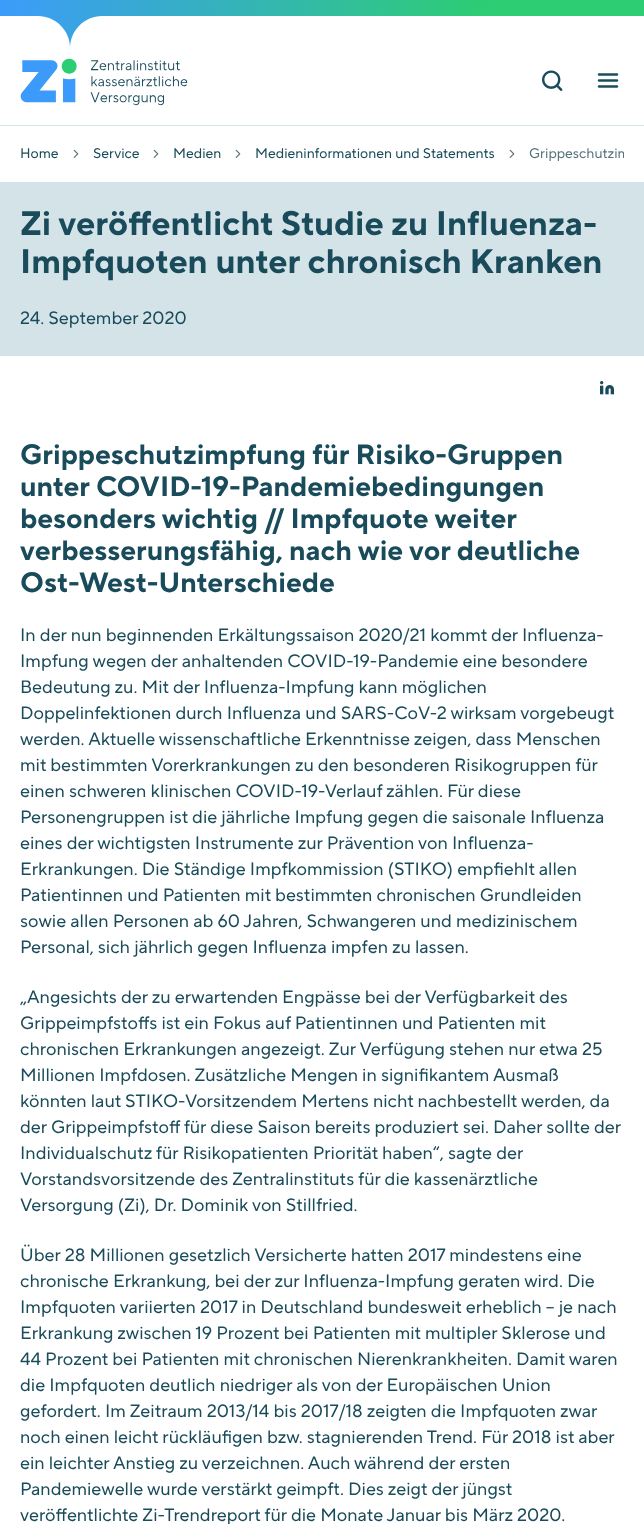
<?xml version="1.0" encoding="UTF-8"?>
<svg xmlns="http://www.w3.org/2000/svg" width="644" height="1524">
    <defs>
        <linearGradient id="g1" gradientUnits="userSpaceOnUse" x1="617" y1="126" x2="27" y2="-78"><stop offset="0.26" stop-color="#2DCD73"/><stop offset="1" stop-color="#3C9BFA"/></linearGradient>
        <clipPath id="clip1"><rect x="20" y="144" width="604" height="20"/></clipPath>
    </defs>
    <rect width="100%" height="100%" fill="#FFFFFF"/>
    <rect x="0" y="125" width="644" height="1" fill="#D4E3E8"/>
    <rect x="0" y="0" width="644" height="48" fill="url(#g1)"/>
    <path d="M 0 16 H 38 C 55.5 16 70 30.5 70 48 H 0 Z" fill="#FFFFFF"/>
    <path d="M 102 16 H 644 V 48 H 70 C 70 30.5 84.5 16 102 16 Z" fill="#FFFFFF"/>
    <image x="20" y="58" width="168" height="48" href="img_01.png"/>
    <image x="542" y="70" width="21" height="21" href="img_02.png"/>
    <image x="597" y="73" width="22" height="15" href="img_03.png"/>
    <text x="20" y="158" font-family="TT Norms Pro" font-size="14" fill="#194B5A">Home</text>
    <image x="73" y="149" width="6" height="9" href="img_04.png"/>
    <text x="93" y="158" font-family="TT Norms Pro" font-size="14" fill="#194B5A">Service</text>
    <image x="153" y="149" width="6" height="9" href="img_04.png"/>
    <text x="173" y="158" font-family="TT Norms Pro" font-size="14" fill="#194B5A">Medien</text>
    <image x="235" y="149" width="6" height="9" href="img_04.png"/>
    <text x="255" y="158" font-family="TT Norms Pro" font-size="14" fill="#194B5A">Medieninformationen und Statements</text>
    <image x="509" y="149" width="6" height="9" href="img_04.png"/>
    <g clip-path="url(#clip1)">
        <text x="529" y="158" font-family="TT Norms Pro" font-size="14" fill="#58727A">Grippeschutzim</text>
    </g>
    <rect x="0" y="182" width="644" height="174" fill="#D4E3E8"/>
    <text font-family="TTNormsPro" font-size="34" font-weight="700" fill="#194B5A">
        <tspan x="20" y="235">Zi veröffentlicht Studie zu Influenza-</tspan>
        <tspan x="20" y="273">Impfquoten unter chronisch Kranken</tspan>
    </text>
    <text x="20" y="324" font-family="TT Norms Pro" font-size="18" fill="#194B5A">24. September 2020</text>
    <image x="600" y="381" width="14" height="14" href="img_05.png"/>
    <text font-family="TTNormsPro" font-size="28" font-weight="700" fill="#194B5A">
        <tspan x="20" y="464">Grippeschutzimpfung für Risiko-Gruppen</tspan>
        <tspan x="20" y="496">unter COVID-19-Pandemiebedingungen</tspan>
        <tspan x="20" y="528">besonders wichtig // Impfquote weiter</tspan>
        <tspan x="20" y="560">verbesserungsfähig, nach wie vor deutliche</tspan>
        <tspan x="20" y="592">Ost-West-Unterschiede</tspan>
    </text>
    <text font-family="TT Norms Pro" font-size="18" fill="#194B5A">
        <tspan x="20" y="641">In der nun beginnenden Erkältungssaison 2020/21 kommt der Influenza-</tspan>
        <tspan x="20" y="667">Impfung wegen der anhaltenden COVID-19-Pandemie eine besondere</tspan>
        <tspan x="20" y="693">Bedeutung zu. Mit der Influenza-Impfung kann möglichen</tspan>
        <tspan x="20" y="719">Doppelinfektionen durch Influenza und SARS-CoV-2 wirksam vorgebeugt</tspan>
        <tspan x="20" y="745">werden. Aktuelle wissenschaftliche Erkenntnisse zeigen, dass Menschen</tspan>
        <tspan x="20" y="771">mit bestimmten Vorerkrankungen zu den besonderen Risikogruppen für</tspan>
        <tspan x="20" y="797">einen schweren klinischen COVID-19-Verlauf zählen. Für diese</tspan>
        <tspan x="20" y="823">Personengruppen ist die jährliche Impfung gegen die saisonale Influenza</tspan>
        <tspan x="20" y="849">eines der wichtigsten Instrumente zur Prävention von Influenza-</tspan>
        <tspan x="20" y="875">Erkrankungen. Die Ständige Impfkommission (STIKO) empfiehlt allen</tspan>
        <tspan x="20" y="901">Patientinnen und Patienten mit bestimmten chronischen Grundleiden</tspan>
        <tspan x="20" y="927">sowie allen Personen ab 60 Jahren, Schwangeren und medizinischem</tspan>
        <tspan x="20" y="953">Personal, sich jährlich gegen Influenza impfen zu lassen.</tspan>
    </text>
    <text font-family="TT Norms Pro" font-size="18" fill="#194B5A">
        <tspan x="20" y="1003">„Angesichts der zu erwartenden Engpässe bei der Verfügbarkeit des</tspan>
        <tspan x="20" y="1029">Grippeimpfstoffs ist ein Fokus auf Patientinnen und Patienten mit</tspan>
        <tspan x="20" y="1055">chronischen Erkrankungen angezeigt. Zur Verfügung stehen nur etwa 25</tspan>
        <tspan x="20" y="1081">Millionen Impfdosen. Zusätzliche Mengen in signifikantem Ausmaß</tspan>
        <tspan x="20" y="1107">könnten laut STIKO-Vorsitzendem Mertens nicht nachbestellt werden, da</tspan>
        <tspan x="20" y="1133">der Grippeimpfstoff für diese Saison bereits produziert sei. Daher sollte der</tspan>
        <tspan x="20" y="1159">Individualschutz für Risikopatienten Priorität haben“, sagte der</tspan>
        <tspan x="20" y="1185">Vorstandsvorsitzende des Zentralinstituts für die kassenärztliche</tspan>
        <tspan x="20" y="1211">Versorgung (Zi), Dr. Dominik von Stillfried.</tspan>
    </text>
    <text font-family="TT Norms Pro" font-size="18" fill="#194B5A">
        <tspan x="20" y="1261">Über 28 Millionen gesetzlich Versicherte hatten 2017 mindestens eine</tspan>
        <tspan x="20" y="1287">chronische Erkrankung, bei der zur Influenza-Impfung geraten wird. Die</tspan>
        <tspan x="20" y="1313">Impfquoten variierten 2017 in Deutschland bundesweit erheblich – je nach</tspan>
        <tspan x="20" y="1339">Erkrankung zwischen 19 Prozent bei Patienten mit multipler Sklerose und</tspan>
        <tspan x="20" y="1365">44 Prozent bei Patienten mit chronischen Nierenkrankheiten. Damit waren</tspan>
        <tspan x="20" y="1391">die Impfquoten deutlich niedriger als von der Europäischen Union</tspan>
        <tspan x="20" y="1417">gefordert. Im Zeitraum 2013/14 bis 2017/18 zeigten die Impfquoten zwar</tspan>
        <tspan x="20" y="1443">noch einen leicht rückläufigen bzw. stagnierenden Trend. Für 2018 ist aber</tspan>
        <tspan x="20" y="1469">ein leichter Anstieg zu verzeichnen. Auch während der ersten</tspan>
        <tspan x="20" y="1495">Pandemiewelle wurde verstärkt geimpft. Dies zeigt der jüngst</tspan>
        <tspan x="20" y="1521">veröffentlichte Zi-Trendreport für die Monate Januar bis März 2020.</tspan>
    </text>
</svg>
